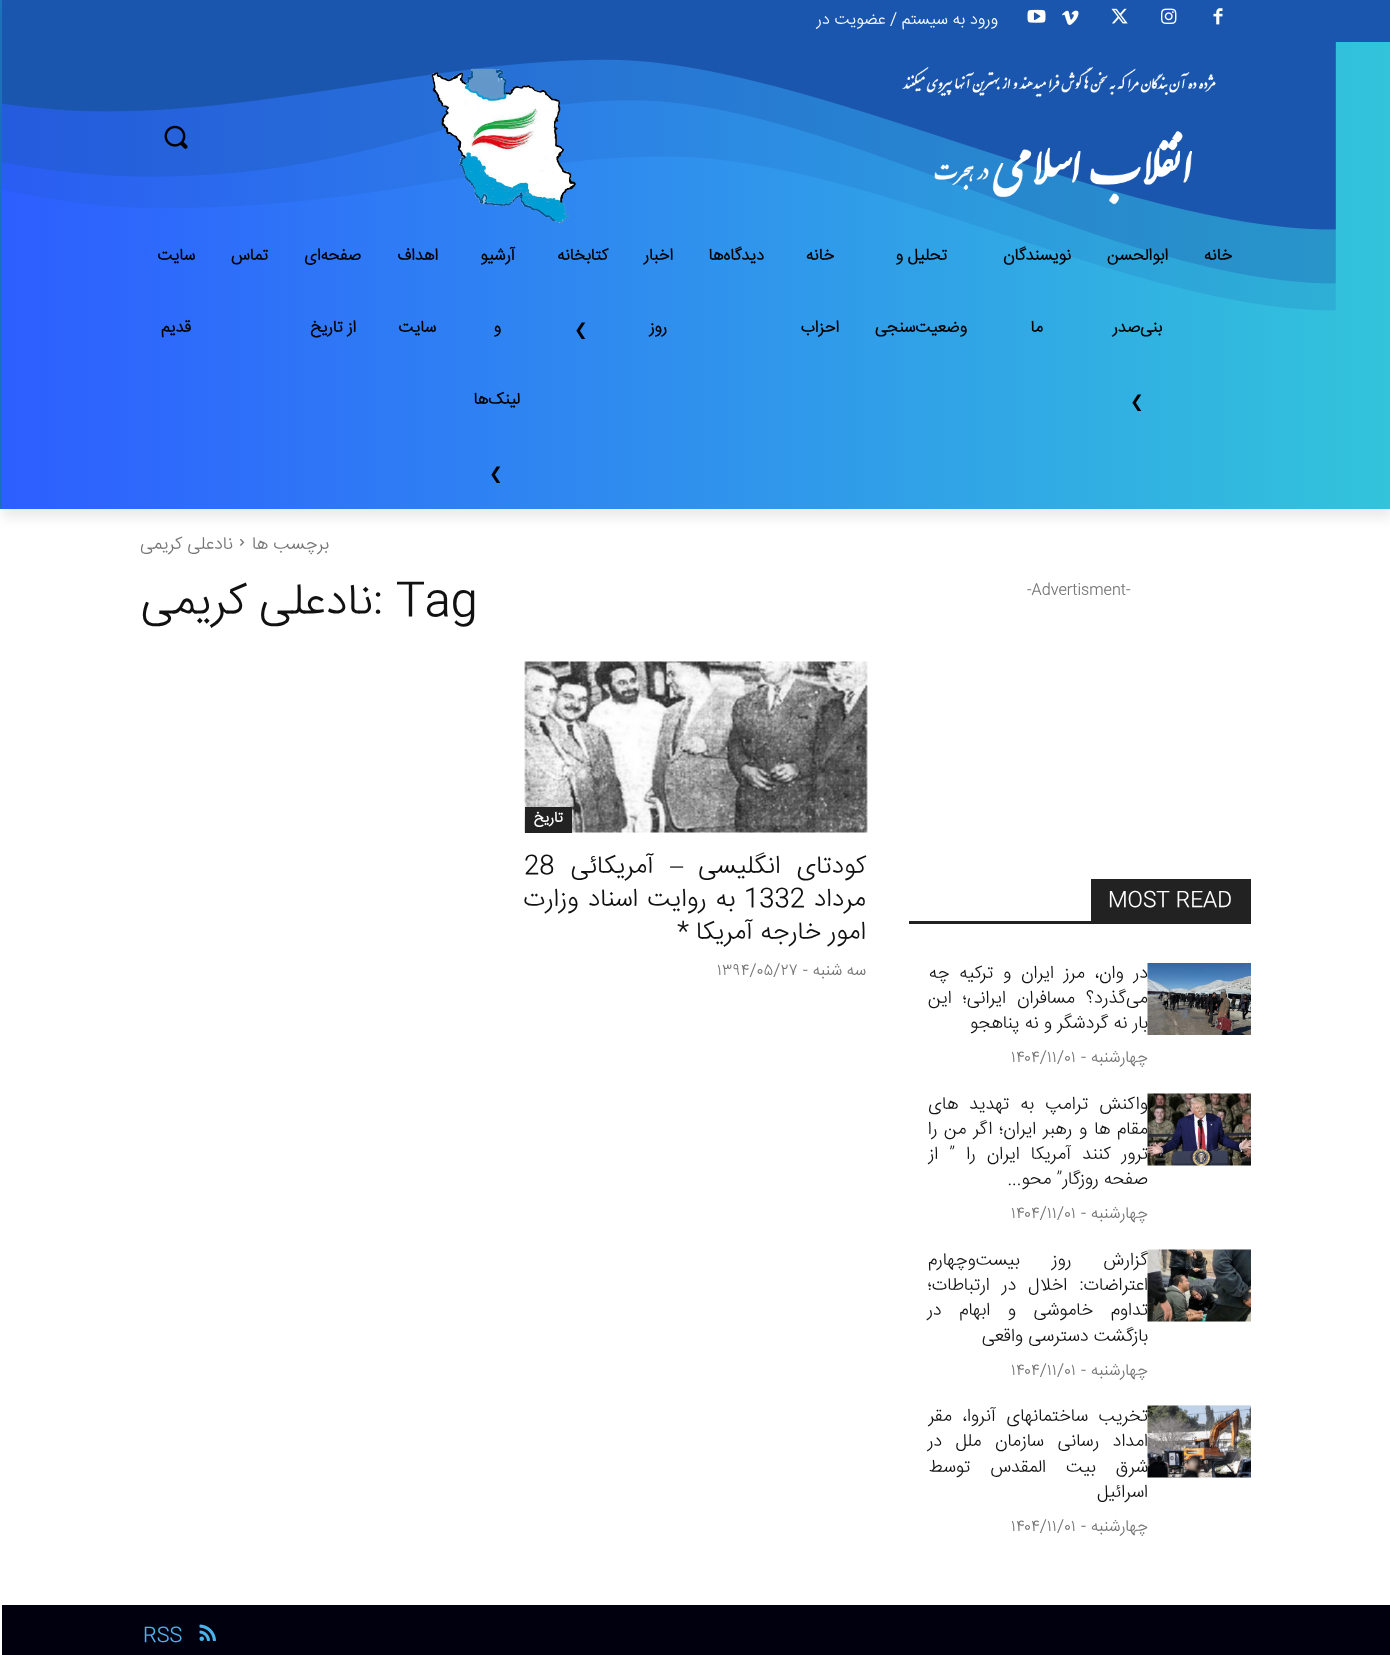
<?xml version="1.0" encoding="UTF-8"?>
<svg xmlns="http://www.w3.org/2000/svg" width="1390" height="1655">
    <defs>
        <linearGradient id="g1" gradientUnits="userSpaceOnUse" x1="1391" y1="254" x2="0" y2="254"><stop offset="0" stop-color="#9EAFBF"/><stop offset="1" stop-color="#1E73BE"/></linearGradient>
        <linearGradient id="g2" gradientUnits="userSpaceOnUse" x1="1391" y1="275" x2="0.8" y2="275"><stop offset="0" stop-color="#32C4DB"/><stop offset="1" stop-color="#2D5EFF"/></linearGradient>
        <clipPath id="clip1"><path d="M 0 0 H 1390 V 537 H 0 Z M 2 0 H 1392 V 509 H 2 Z" clip-rule="evenodd"/></clipPath>
        <filter id="blur1" x="-50%" y="-200%" width="200%" height="500%"><feGaussianBlur stdDeviation="6"/></filter>
    </defs>
    <rect width="100%" height="100%" fill="#FFFFFF"/>
    <rect x="0" y="0" width="2" height="509" fill="url(#g1)"/>
    <rect x="2" y="0" width="1388" height="42" fill="#1A56AE"/>
    <image x="1213" y="8" width="10" height="17" href="img_01.png"/>
    <image x="1161" y="8" width="16" height="16" href="img_02.png"/>
    <image x="1111" y="8" width="17" height="16" href="img_03.png"/>
    <image x="1062" y="10" width="17" height="15" href="img_04.png"/>
    <image x="1027" y="9" width="19" height="14" href="img_05.png"/>
    <rect x="2" y="42" width="1388" height="467" fill="url(#g2)"/>
    <image x="2" y="42" width="1334" height="269" href="img_06.png"/>
    <image x="902" y="66" width="314" height="139" href="img_07.png"/>
    <image x="431" y="68" width="145" height="155" href="img_08.png"/>
    <g clip-path="url(#clip1)">
        <rect x="2" y="9" width="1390" height="509" fill="#000000" fill-opacity="0.08" filter="url(#blur1)"/>
    </g>
    <text x="998" y="24" font-family="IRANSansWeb" font-size="16.5" font-weight="300" direction="rtl" fill="#FFFFFF">ورود به سیستم / عضویت در</text>
    <image x="164" y="125" width="24" height="24" href="img_09.png"/>
    <text x="1232" y="260" font-family="IRANSansWeb" font-size="16.5" font-weight="700" direction="rtl" fill="#000000">خانه</text>
    <text x="1168" y="260" font-family="IRANSansWeb" font-size="16.5" font-weight="700" direction="rtl" fill="#000000">ابوالحسن</text>
    <text x="1162" y="332" font-family="IRANSansWeb" font-size="16.5" font-weight="700" direction="rtl" fill="#000000">بنی‌صدر</text>
    <text x="1130" y="407" font-family="DejaVu Sans" font-size="16.5" fill="#000000">❮</text>
    <text x="1071" y="260" font-family="IRANSansWeb" font-size="16.5" font-weight="700" direction="rtl" fill="#000000">نویسندگان</text>
    <text x="1043" y="332" font-family="IRANSansWeb" font-size="16.5" font-weight="700" direction="rtl" fill="#000000">ما</text>
    <text x="947" y="260" font-family="IRANSansWeb" font-size="16.5" font-weight="700" direction="rtl" fill="#000000">تحلیل و</text>
    <text x="967" y="332" font-family="IRANSansWeb" font-size="16.5" font-weight="700" direction="rtl" fill="#000000">وضعیت‌سنجی</text>
    <text x="834" y="260" font-family="IRANSansWeb" font-size="16.5" font-weight="700" direction="rtl" fill="#000000">خانه</text>
    <text x="839" y="332" font-family="IRANSansWeb" font-size="16.5" font-weight="700" direction="rtl" fill="#000000">احزاب</text>
    <text x="764" y="260" font-family="IRANSansWeb" font-size="16.5" font-weight="700" direction="rtl" fill="#000000">دیدگاه‌ها</text>
    <text x="673" y="260" font-family="IRANSansWeb" font-size="16.5" font-weight="700" direction="rtl" fill="#000000">اخبار</text>
    <text x="667" y="332" font-family="IRANSansWeb" font-size="16.5" font-weight="700" direction="rtl" fill="#000000">روز</text>
    <text x="608" y="260" font-family="IRANSansWeb" font-size="16.5" font-weight="700" direction="rtl" fill="#000000">کتابخانه</text>
    <text x="574" y="335" font-family="DejaVu Sans" font-size="16.5" fill="#000000">❮</text>
    <text x="515" y="260" font-family="IRANSansWeb" font-size="16.5" font-weight="700" direction="rtl" fill="#000000">آرشیو</text>
    <text x="501" y="332" font-family="IRANSansWeb" font-size="16.5" font-weight="700" direction="rtl" fill="#000000">و</text>
    <text x="520" y="404" font-family="IRANSansWeb" font-size="16.5" font-weight="700" direction="rtl" fill="#000000">لینک‌ها</text>
    <text x="489" y="479" font-family="DejaVu Sans" font-size="16.5" fill="#000000">❮</text>
    <text x="438" y="260" font-family="IRANSansWeb" font-size="16.5" font-weight="700" direction="rtl" fill="#000000">اهداف</text>
    <text x="436" y="332" font-family="IRANSansWeb" font-size="16.5" font-weight="700" direction="rtl" fill="#000000">سایت</text>
    <text x="361" y="260" font-family="IRANSansWeb" font-size="16.5" font-weight="700" direction="rtl" fill="#000000">صفحه‌ای</text>
    <text x="356" y="332" font-family="IRANSansWeb" font-size="16.5" font-weight="700" direction="rtl" fill="#000000">از تاریخ</text>
    <text x="268" y="260" font-family="IRANSansWeb" font-size="16.5" font-weight="700" direction="rtl" fill="#000000">تماس</text>
    <text x="195" y="260" font-family="IRANSansWeb" font-size="16.5" font-weight="700" direction="rtl" fill="#000000">سایت</text>
    <text x="191" y="332" font-family="IRANSansWeb" font-size="16.5" font-weight="700" direction="rtl" fill="#000000">قدیم</text>
    <text x="329" y="549" font-family="IRANSansWeb" font-size="18" font-weight="300" direction="rtl" fill="#747474">برچسب ها</text>
    <image x="240" y="538" width="4" height="8" href="img_10.png"/>
    <text x="233" y="549" font-family="IRANSansWeb" font-size="18" font-weight="300" direction="rtl" fill="#747474">نادعلی کریمی</text>
    <text x="1027" y="594" font-family="IRANSansWeb" font-size="15" font-weight="300" fill="#747474">-Advertisment-</text>
    <rect x="909" y="921" width="342" height="3" fill="#222222"/>
    <rect x="1091" y="879" width="160" height="42" fill="#222222"/>
    <text x="1108" y="906" font-family="IRANSansWeb" font-size="21" font-weight="300" fill="#FFFFFF">MOST READ</text>
    <image x="1147" y="963" width="104" height="72" href="img_11.png"/>
    <text font-family="IRANSansWeb" font-size="18" font-weight="300" direction="rtl" fill="#111111">
        <tspan x="1148" y="978" word-spacing="4.75">در وان، مرز ایران و ترکیه چه</tspan>
        <tspan x="1148" y="1003" word-spacing="6">می‌گذرد؟ مسافران ایرانی؛ این‌‍</tspan>
        <tspan x="1148" y="1028">بار نه گردشگر و نه پناهجو</tspan>
    </text>
    <text x="1148" y="1062" font-family="IRANSansWeb" font-size="16.5" font-weight="300" direction="rtl" fill="#747474">چهارشنبه -</text>
    <text x="1011" y="1062" font-family="IRANSansWeb" font-size="16.5" font-weight="300" fill="#747474">۱۴۰۴/۱۱/۰۱</text>
    <image x="1147" y="1093" width="104" height="73" href="img_12.png"/>
    <text font-family="IRANSansWeb" font-size="18" font-weight="300" direction="rtl" fill="#111111">
        <tspan x="1148" y="1109" word-spacing="6">واکنش ترامپ به تهدید های</tspan>
        <tspan x="1148" y="1134" word-spacing="1.75">مقام ها و رهبر ایران؛ اگر من را</tspan>
        <tspan x="1148" y="1159" word-spacing="6">ترور کنند</tspan>
    </text>
    <text x="1071" y="1159" word-spacing="6" font-family="IRANSansWeb" font-size="18" font-weight="300" direction="rtl" fill="#111111">آمریکا ایران را ” از</text>
    <text x="1148" y="1184" font-family="IRANSansWeb" font-size="18" font-weight="300" direction="rtl" fill="#111111">صفحه روزگار” محو...</text>
    <text x="1148" y="1218" font-family="IRANSansWeb" font-size="16.5" font-weight="300" direction="rtl" fill="#747474">چهارشنبه -</text>
    <text x="1011" y="1218" font-family="IRANSansWeb" font-size="16.5" font-weight="300" fill="#747474">۱۴۰۴/۱۱/۰۱</text>
    <image x="1147" y="1249" width="104" height="73" href="img_13.png"/>
    <text font-family="IRANSansWeb" font-size="18" font-weight="300" direction="rtl" fill="#111111">
        <tspan x="1148" y="1265" word-spacing="27">گزارش روز بیست‌وچهارم</tspan>
        <tspan x="1148" y="1290" word-spacing="7">اعتراضات: اخلال در ارتباطات؛</tspan>
        <tspan x="1148" y="1315" word-spacing="12.5">تداوم خاموشی و ابهام در</tspan>
        <tspan x="1148" y="1341">بازگشت دسترسی واقعی</tspan>
    </text>
    <text x="1148" y="1375" font-family="IRANSansWeb" font-size="16.5" font-weight="300" direction="rtl" fill="#747474">چهارشنبه -</text>
    <text x="1011" y="1375" font-family="IRANSansWeb" font-size="16.5" font-weight="300" fill="#747474">۱۴۰۴/۱۱/۰۱</text>
    <image x="1147" y="1405" width="104" height="73" href="img_14.png"/>
    <text font-family="IRANSansWeb" font-size="18" font-weight="300" direction="rtl" fill="#111111">
        <tspan x="1148" y="1421" word-spacing="5.5">تخریب ساختمانهای آنروا، مقر</tspan>
        <tspan x="1148" y="1446" word-spacing="8.5">امداد رسانی سازمان ملل در</tspan>
        <tspan x="1148" y="1472" word-spacing="15">شرق بیت المقدس توسط</tspan>
        <tspan x="1148" y="1497">اسرائیل</tspan>
    </text>
    <text x="1148" y="1531" font-family="IRANSansWeb" font-size="16.5" font-weight="300" direction="rtl" fill="#747474">چهارشنبه -</text>
    <text x="1011" y="1531" font-family="IRANSansWeb" font-size="16.5" font-weight="300" fill="#747474">۱۴۰۴/۱۱/۰۱</text>
    <text x="373" y="614" font-family="IRANSansWeb" font-size="45" font-weight="300" fill="#111111">: Tag</text>
    <text x="373" y="614" font-family="IRANSansWeb" font-size="45" font-weight="300" direction="rtl" fill="#111111">نادعلی کریمی</text>
    <image x="524" y="661" width="344" height="172" href="img_15.png"/>
    <rect x="525" y="807" width="47" height="26" fill="#222222"/>
    <text x="563" y="822" font-family="IRANSansWeb" font-size="15" font-weight="700" direction="rtl" fill="#FFFFFF">تاریخ</text>
    <text x="866" y="873" word-spacing="9" font-family="IRANSansWeb" font-size="25.5" font-weight="300" direction="rtl" fill="#111111">کودتای انگلیسی</text>
    <text x="683" y="873" font-family="Liberation Serif" font-size="25.5" direction="rtl" fill="#111111">–</text>
    <text x="654" y="873" font-family="IRANSansWeb" font-size="25.5" font-weight="300" direction="rtl" fill="#111111">آمریکائی</text>
    <text x="524" y="873" font-family="IRANSansWeb" font-size="25.5" font-weight="300" fill="#111111">28</text>
    <text x="866" y="906" font-family="IRANSansWeb" font-size="25.5" font-weight="300" direction="rtl" fill="#111111">مرداد</text>
    <text x="744" y="906" font-family="IRANSansWeb" font-size="25.5" font-weight="300" fill="#111111">1332</text>
    <text x="735" y="906" word-spacing="2" font-family="IRANSansWeb" font-size="25.5" font-weight="300" direction="rtl" fill="#111111">به روایت اسناد وزارت</text>
    <text x="866" y="939" font-family="IRANSansWeb" font-size="25.5" font-weight="300" direction="rtl" fill="#111111">امور خارجه آمریکا *</text>
    <text x="866" y="975" font-family="IRANSansWeb" font-size="16.5" font-weight="300" direction="rtl" fill="#747474">سه شنبه -</text>
    <text x="717" y="975" font-family="IRANSansWeb" font-size="16.5" font-weight="300" fill="#747474">۱۳۹۴/۰۵/۲۷</text>
    <rect x="2" y="1605" width="1388" height="50" fill="#01000F"/>
    <image x="199" y="1624" width="17" height="17" href="img_16.png"/>
    <text x="143" y="1641" font-family="IRANSansWeb" font-size="20" font-weight="300" fill="#4DB2EC">RSS</text>
</svg>
